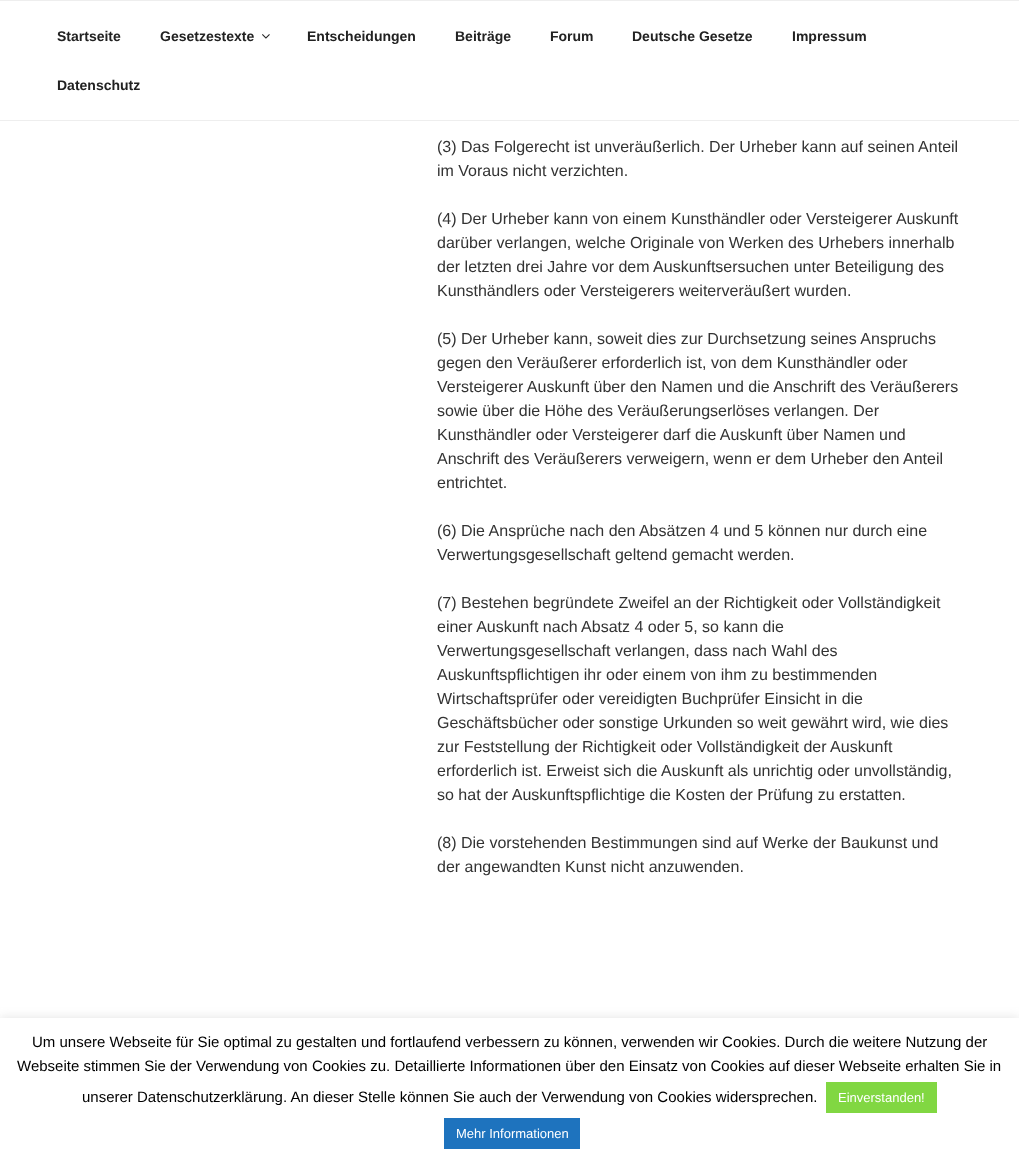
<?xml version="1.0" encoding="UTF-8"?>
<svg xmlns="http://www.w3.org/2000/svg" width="1019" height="1161">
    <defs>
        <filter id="blur1" x="-50%" y="-200%" width="200%" height="500%"><feGaussianBlur stdDeviation="5"/></filter>
    </defs>
    <rect width="100%" height="100%" fill="#FFFFFF"/>
    <rect x="0" y="0" width="1019" height="1" fill="#EEEEEE"/>
    <rect x="0" y="120" width="1019" height="1" fill="#EEEEEE"/>
    <text x="57" y="41" font-family="Liberation Sans" font-size="14" font-weight="700" fill="#222222">Startseite</text>
    <text x="160" y="41" font-family="Liberation Sans" font-size="14" font-weight="700" fill="#222222">Gesetzestexte</text>
    <image x="262" y="34" width="8" height="5" href="img_01.png"/>
    <text x="307" y="41" font-family="Liberation Sans" font-size="14" font-weight="700" fill="#222222">Entscheidungen</text>
    <text x="455" y="41" font-family="Liberation Sans" font-size="14" font-weight="700" fill="#222222">Beiträge</text>
    <text x="550" y="41" font-family="Liberation Sans" font-size="14" font-weight="700" fill="#222222">Forum</text>
    <text x="632" y="41" font-family="Liberation Sans" font-size="14" font-weight="700" fill="#222222">Deutsche Gesetze</text>
    <text x="792" y="41" font-family="Liberation Sans" font-size="14" font-weight="700" fill="#222222">Impressum</text>
    <text x="57" y="90" font-family="Liberation Sans" font-size="14" font-weight="700" fill="#222222">Datenschutz</text>
    <text font-family="Liberation Sans" font-size="16" fill="#333333">
        <tspan x="437" y="152">(3) Das Folgerecht ist unveräußerlich. Der Urheber kann auf seinen Anteil</tspan>
        <tspan x="437" y="176">im Voraus nicht verzichten.</tspan>
    </text>
    <text font-family="Liberation Sans" font-size="16" fill="#333333">
        <tspan x="437" y="224">(4) Der Urheber kann von einem Kunsthändler oder Versteigerer Auskunft</tspan>
        <tspan x="437" y="248">darüber verlangen, welche Originale von Werken des Urhebers innerhalb</tspan>
        <tspan x="437" y="272">der letzten drei Jahre vor dem Auskunftsersuchen unter Beteiligung des</tspan>
        <tspan x="437" y="296">Kunsthändlers oder Versteigerers weiterveräußert wurden.</tspan>
    </text>
    <text font-family="Liberation Sans" font-size="16" fill="#333333">
        <tspan x="437" y="344">(5) Der Urheber kann, soweit dies zur Durchsetzung seines Anspruchs</tspan>
        <tspan x="437" y="368">gegen den Veräußerer erforderlich ist, von dem Kunsthändler oder</tspan>
        <tspan x="437" y="392">Versteigerer Auskunft über den Namen und die Anschrift des Veräußerers</tspan>
        <tspan x="437" y="416">sowie über die Höhe des Veräußerungserlöses verlangen. Der</tspan>
        <tspan x="437" y="440">Kunsthändler oder Versteigerer darf die Auskunft über Namen und</tspan>
        <tspan x="437" y="464">Anschrift des Veräußerers verweigern, wenn er dem Urheber den Anteil</tspan>
        <tspan x="437" y="488">entrichtet.</tspan>
    </text>
    <text font-family="Liberation Sans" font-size="16" fill="#333333">
        <tspan x="437" y="536">(6) Die Ansprüche nach den Absätzen 4 und 5 können nur durch eine</tspan>
        <tspan x="437" y="560">Verwertungsgesellschaft geltend gemacht werden.</tspan>
    </text>
    <text font-family="Liberation Sans" font-size="16" fill="#333333">
        <tspan x="437" y="608">(7) Bestehen begründete Zweifel an der Richtigkeit oder Vollständigkeit</tspan>
        <tspan x="437" y="632">einer Auskunft nach Absatz 4 oder 5, so kann die</tspan>
        <tspan x="437" y="656">Verwertungsgesellschaft verlangen, dass nach Wahl des</tspan>
        <tspan x="437" y="680">Auskunftspflichtigen ihr oder einem von ihm zu bestimmenden</tspan>
        <tspan x="437" y="704">Wirtschaftsprüfer oder vereidigten Buchprüfer Einsicht in die</tspan>
        <tspan x="437" y="728">Geschäftsbücher oder sonstige Urkunden so weit gewährt wird, wie dies</tspan>
        <tspan x="437" y="752">zur Feststellung der Richtigkeit oder Vollständigkeit der Auskunft</tspan>
        <tspan x="437" y="776">erforderlich ist. Erweist sich die Auskunft als unrichtig oder unvollständig,</tspan>
        <tspan x="437" y="800">so hat der Auskunftspflichtige die Kosten der Prüfung zu erstatten.</tspan>
    </text>
    <text font-family="Liberation Sans" font-size="16" fill="#333333">
        <tspan x="437" y="848">(8) Die vorstehenden Bestimmungen sind auf Werke der Baukunst und</tspan>
        <tspan x="437" y="872">der angewandten Kunst nicht anzuwenden.</tspan>
    </text>
    <rect x="0" y="1017" width="1019" height="143" fill="#ACABAB" fill-opacity="0.3" filter="url(#blur1)"/>
    <rect x="0" y="1018" width="1019" height="143" fill="#FFFFFF"/>
    <text x="32" y="1047" font-family="Liberation Sans" font-size="15" fill="#000000">Um unsere Webseite für Sie optimal zu gestalten und fortlaufend verbessern zu können, verwenden wir Cookies. Durch die weitere Nutzung der</text>
    <text x="17" y="1071" font-family="Liberation Sans" font-size="15" fill="#000000">Webseite stimmen Sie der Verwendung von Cookies zu. Detaillierte Informationen über den Einsatz von Cookies auf dieser Webseite erhalten Sie in</text>
    <text x="82" y="1102" font-family="Liberation Sans" font-size="15" fill="#000000">unserer Datenschutzerklärung. An dieser Stelle können Sie auch der Verwendung von Cookies widersprechen.</text>
    <rect x="826" y="1082" width="111" height="31" fill="#81D742"/>
    <text x="838" y="1102" font-family="Liberation Sans" font-size="13" fill="#FFFFFF">Einverstanden!</text>
    <rect x="444" y="1118" width="136" height="31" fill="#1E73BE"/>
    <text x="456" y="1138" font-family="Liberation Sans" font-size="13" fill="#FFFFFF">Mehr Informationen</text>
</svg>
